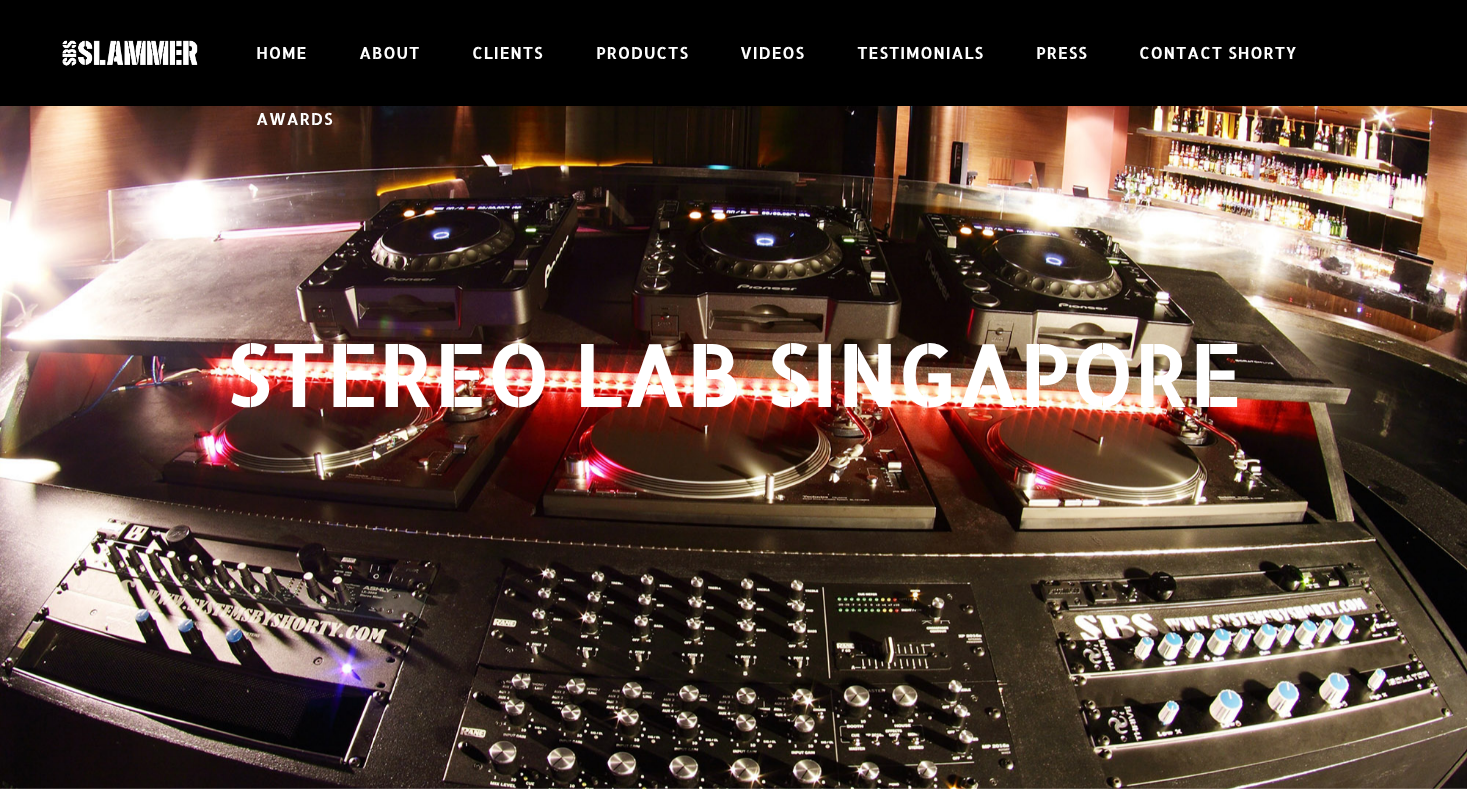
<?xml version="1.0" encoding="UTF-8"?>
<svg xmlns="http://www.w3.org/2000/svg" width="1467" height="789">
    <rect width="100%" height="100%" fill="#FFFFFF"/>
    <rect x="0" y="0" width="1467" height="106" fill="#000000"/>
    <image x="62" y="40" width="136" height="26" href="img_01.png"/>
    <text x="256" y="59" font-family="Allerta Stencil" font-size="16" font-weight="700" letter-spacing="1" fill="#FFFFFF">HOME</text>
    <text x="359" y="59" font-family="Allerta Stencil" font-size="16" font-weight="700" letter-spacing="1" fill="#FFFFFF">ABOUT</text>
    <text x="472" y="59" font-family="Allerta Stencil" font-size="16" font-weight="700" letter-spacing="1" fill="#FFFFFF">CLIENTS</text>
    <text x="596" y="59" font-family="Allerta Stencil" font-size="16" font-weight="700" letter-spacing="1" fill="#FFFFFF">PRODUCTS</text>
    <text x="740" y="59" font-family="Allerta Stencil" font-size="16" font-weight="700" letter-spacing="1" fill="#FFFFFF">VIDEOS</text>
    <text x="857" y="59" font-family="Allerta Stencil" font-size="16" font-weight="700" letter-spacing="1" fill="#FFFFFF">TESTIMONIALS</text>
    <text x="1036" y="59" font-family="Allerta Stencil" font-size="16" font-weight="700" letter-spacing="1" fill="#FFFFFF">PRESS</text>
    <text x="1139" y="59" font-family="Allerta Stencil" font-size="16" font-weight="700" letter-spacing="1" fill="#FFFFFF">CONTACT SHORTY</text>
    <image x="0" y="106" width="1467" height="683" href="img_02.png"/>
    <text x="256" y="125" font-family="Allerta Stencil" font-size="16" font-weight="700" letter-spacing="1" fill="#FFFFFF">AWARDS</text>
    <text x="225" y="407" font-family="Allerta Stencil" font-size="84" font-weight="700" letter-spacing="1" fill="#FFFFFF">STEREO LAB SINGAPORE</text>
</svg>
